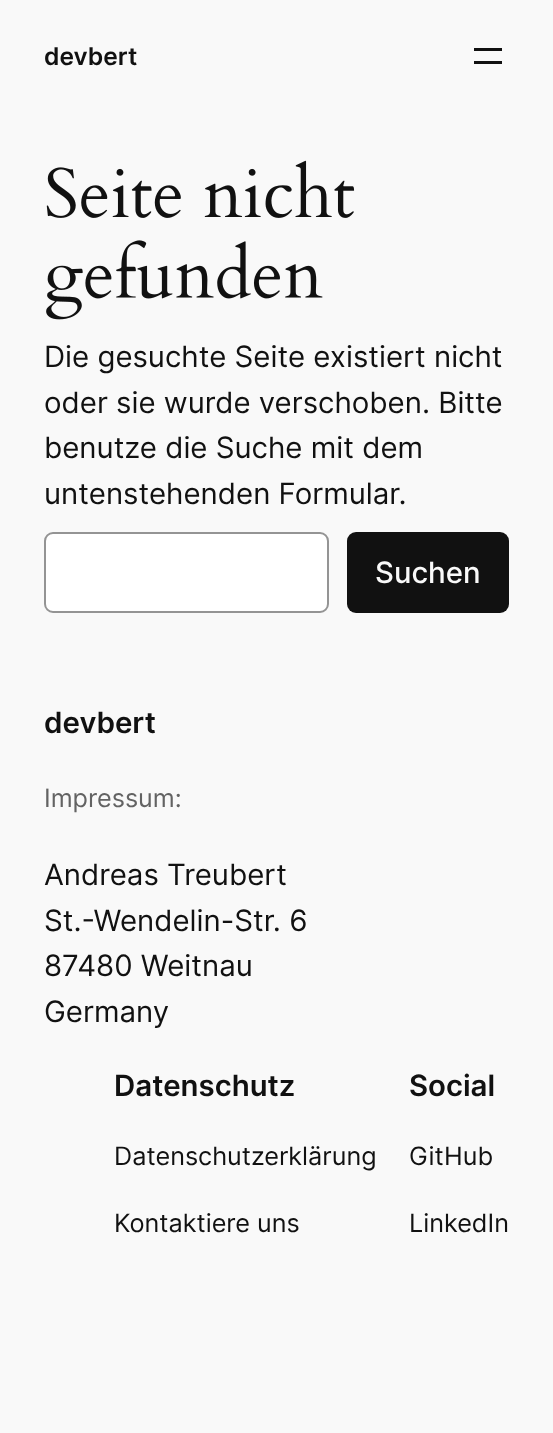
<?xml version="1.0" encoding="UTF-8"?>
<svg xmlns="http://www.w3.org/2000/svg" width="553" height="1433">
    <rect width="100%" height="100%" fill="#F9F9F9"/>
    <text x="44" y="65" font-family="Inter" font-size="24.5" font-weight="600" fill="#111111">devbert</text>
    <rect x="474" y="48" width="28" height="3" fill="#111111"/>
    <rect x="474" y="61" width="28" height="3" fill="#111111"/>
    <image x="46" y="160" width="309" height="58" href="img_01.png"/>
    <image x="46" y="240" width="277" height="80" href="img_02.png"/>
    <text font-family="Inter" font-size="29.4" fill="#111111">
        <tspan x="44" y="367">Die gesuchte Seite existiert nicht</tspan>
        <tspan x="44" y="413">oder sie wurde verschoben. Bitte</tspan>
        <tspan x="44" y="458">benutze die Suche mit dem</tspan>
        <tspan x="44" y="504">untenstehenden Formular.</tspan>
    </text>
    <rect x="45" y="533" width="283" height="79" rx="8" fill="#FFFFFF" stroke="#949494" stroke-width="2"/>
    <rect x="347" y="532" width="162" height="81" rx="9" fill="#111111"/>
    <text x="375" y="583" font-family="Inter" font-size="29.4" font-weight="500" fill="#F9F9F9">Suchen</text>
    <text x="44" y="733" font-family="Inter" font-size="29.4" font-weight="600" fill="#111111">devbert</text>
    <text x="44" y="807" font-family="Inter" font-size="25.25" fill="#636363">Impressum:</text>
    <text font-family="Inter" font-size="29.4" fill="#111111">
        <tspan x="44" y="885">Andreas Treubert</tspan>
        <tspan x="44" y="931">St.-Wendelin-Str. 6</tspan>
        <tspan x="44" y="976">87480 Weitnau</tspan>
        <tspan x="44" y="1022">Germany</tspan>
    </text>
    <text x="114" y="1096" font-family="Inter" font-size="29.4" font-weight="600" fill="#111111">Datenschutz</text>
    <text x="114" y="1165" font-family="Inter" font-size="25.25" fill="#111111">Datenschutzerklärung</text>
    <text x="114" y="1232" font-family="Inter" font-size="25.25" fill="#111111">Kontaktiere uns</text>
    <text x="409" y="1096" font-family="Inter" font-size="29.4" font-weight="600" fill="#111111">Social</text>
    <text x="409" y="1165" font-family="Inter" font-size="25.25" fill="#111111">GitHub</text>
    <text x="409" y="1232" font-family="Inter" font-size="25.25" fill="#111111">LinkedIn</text>
</svg>
